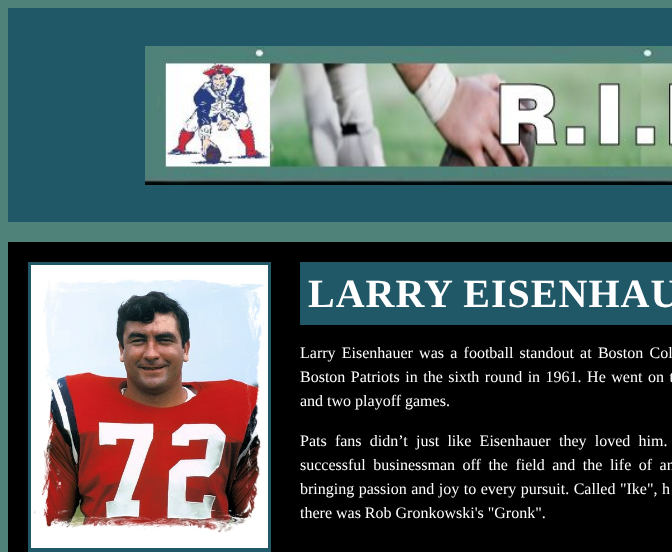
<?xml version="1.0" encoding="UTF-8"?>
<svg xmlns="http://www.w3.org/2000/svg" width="672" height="552">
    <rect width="100%" height="100%" fill="#4F8279"/>
    <rect x="8" y="8" width="664" height="214" fill="#215868"/>
    <image x="145" y="46" width="527" height="139" href="img_01.png"/>
    <rect x="8" y="242" width="664" height="310" fill="#000000"/>
    <rect x="28" y="262" width="243" height="290" fill="#215868"/>
    <image x="31" y="265" width="237" height="283" href="img_02.png"/>
    <rect x="300" y="262" width="372" height="63" fill="#215868"/>
    <text x="308" y="307" font-family="Liberation Serif" font-size="40" font-weight="700" letter-spacing="1" fill="#FFFFFF">LARRY EISENHAU</text>
    <text font-family="Liberation Serif" font-size="16" fill="#FFFFFF">
        <tspan x="300" y="358" word-spacing="2.25">Larry Eisenhauer was a football standout at Boston Col</tspan>
        <tspan x="300" y="382" word-spacing="1.5">Boston Patriots in the sixth round in 1961. He went on t</tspan>
        <tspan x="300" y="406">and two playoff games.</tspan>
    </text>
    <text font-family="Liberation Serif" font-size="16" fill="#FFFFFF">
        <tspan x="300" y="446" word-spacing="4.25">Pats fans didn’t just like Eisenhauer they loved him.</tspan>
        <tspan x="300" y="470" word-spacing="3.5">successful businessman off the field and the life of an</tspan>
        <tspan x="300" y="494" word-spacing="0.5">bringing passion and joy to every pursuit. Called</tspan>
    </text>
    <text x="620" y="494" word-spacing="0.5" font-family="Liberation Serif" font-size="16" fill="#FFFFFF">"Ike", h</text>
    <text x="300" y="518" font-family="Liberation Serif" font-size="16" fill="#FFFFFF">there was Rob Gronkowski's "Gronk".</text>
</svg>
